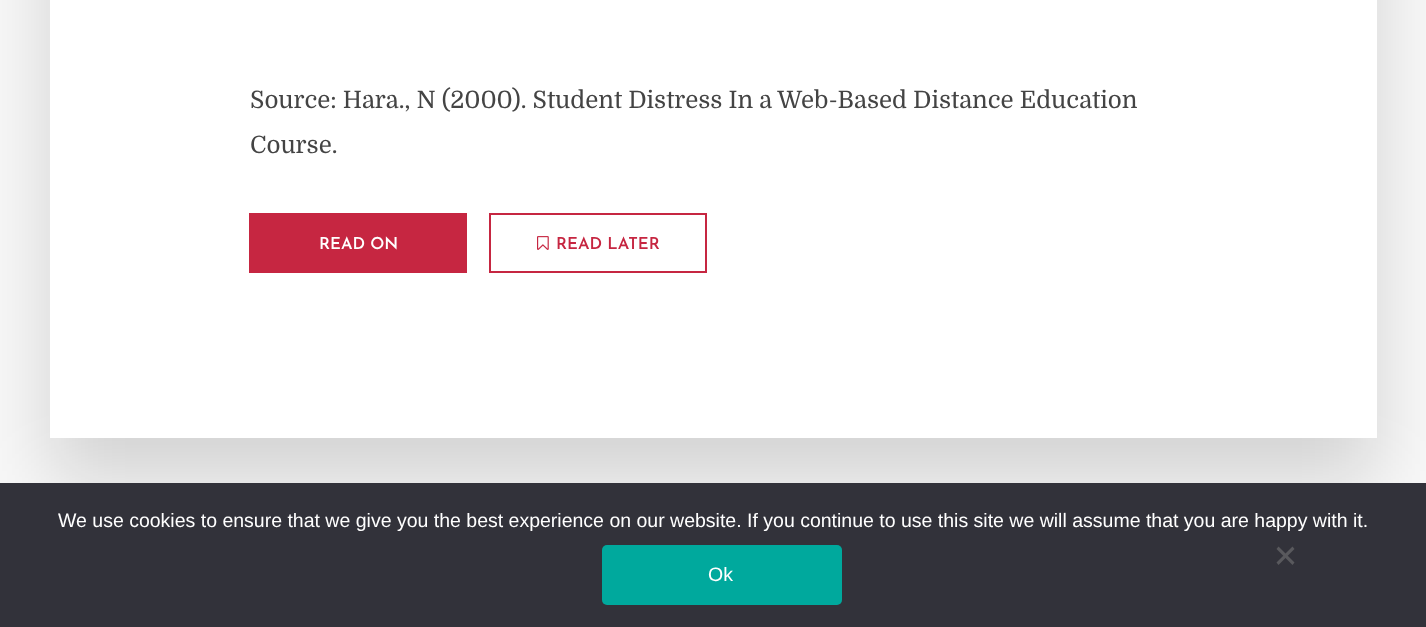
<?xml version="1.0" encoding="UTF-8"?>
<svg xmlns="http://www.w3.org/2000/svg" width="1426" height="627">
    <defs>
        <filter id="blur1" x="-50%" y="-200%" width="200%" height="500%"><feGaussianBlur stdDeviation="37.5"/></filter>
    </defs>
    <rect width="100%" height="100%" fill="#F8F8F8"/>
    <rect x="50" y="-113" width="1327" height="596" fill="#010101" fill-opacity="0.15" filter="url(#blur1)"/>
    <rect x="50" y="0" width="1327" height="438" fill="#FFFFFF"/>
    <text font-family="Domine" font-size="24" fill="#444444">
        <tspan x="250" y="108">Source: Hara., N (2000). Student Distress In a Web-Based Distance Education</tspan>
        <tspan x="250" y="153">Course.</tspan>
    </text>
    <rect x="249" y="213" width="218" height="60" fill="#C62641"/>
    <text x="319" y="249" font-family="Josefin Sans" font-size="16.5" font-weight="600" fill="#FFFFFF">READ ON</text>
    <rect x="490" y="214" width="216" height="58" fill="none" stroke="#C62641" stroke-width="2"/>
    <image x="537" y="236" width="12" height="14" href="img_01.png"/>
    <text x="556" y="249" font-family="Josefin Sans" font-size="16.5" font-weight="600" fill="#C62641">READ LATER</text>
    <rect x="0" y="483" width="1426" height="144" fill="#32323A"/>
    <text x="58" y="527" font-family="Liberation Sans" font-size="19.5" fill="#FFFFFF">We use cookies to ensure that we give you the best experience on our website. If you continue to use this site we will assume that you are happy with it.</text>
    <path d="M 1292.5 546.5 L 1294.5 549 L 1278.5 565 L 1276.5 562.5 Z" fill="#59595D"/>
    <path d="M 1276.5 549 L 1278.5 546.5 L 1294.5 562.5 L 1292.5 565 Z" fill="#59595D"/>
    <rect x="602" y="545" width="240" height="60" rx="5" fill="#00A99D"/>
    <text x="708" y="581" font-family="Liberation Sans" font-size="19.5" fill="#FFFFFF">Ok</text>
</svg>
